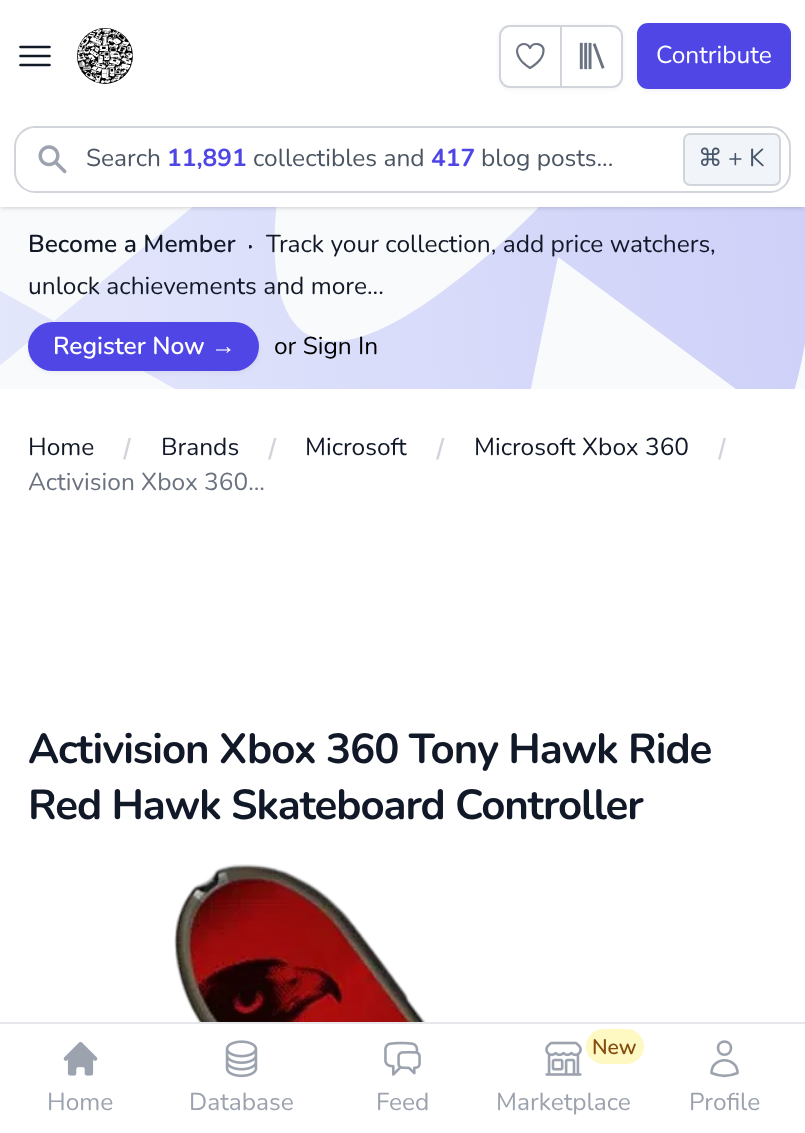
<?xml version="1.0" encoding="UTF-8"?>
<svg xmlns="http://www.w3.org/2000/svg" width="805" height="1133">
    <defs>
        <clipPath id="clip1"><rect x="0" y="207" width="805" height="182"/></clipPath>
        <linearGradient id="g1" gradientUnits="userSpaceOnUse" x1="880" y1="73" x2="-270" y2="194"><stop offset="0" stop-color="#CCCEF8"/><stop offset="1" stop-color="#EAEEFC"/></linearGradient>
        <filter id="blur1" x="-50%" y="-200%" width="200%" height="500%"><feGaussianBlur stdDeviation="2"/></filter>
        <filter id="blur2" x="-50%" y="-200%" width="200%" height="500%"><feGaussianBlur stdDeviation="2.5"/></filter>
        <clipPath id="clip2"><rect x="249" y="245" width="4" height="4"/></clipPath>
    </defs>
    <rect width="100%" height="100%" fill="#FFFFFF"/>
    <rect x="0" y="207" width="805" height="182" fill="#F9FAFB"/>
    <g clip-path="url(#clip1)">
        <path d="M 54 321 L -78 430 L -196 181 L 54 321 L 291 126 C 262 238 251 429 436 296 C 667 130 670 -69 765 79 C 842 198 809 359 783 424 L 558 257 L 494 568 Z" fill="url(#g1)"/>
    </g>
    <rect x="2" y="4" width="801" height="203" fill="#000000" fill-opacity="0.1" filter="url(#blur1)"/>
    <rect x="0" y="2" width="805" height="206" fill="#000000" fill-opacity="0.1" filter="url(#blur2)"/>
    <rect x="0" y="0" width="805" height="207" fill="#FFFFFF"/>
    <path d="M 20.5 47 H 49.5 M 20.5 56 H 49.5 M 20.5 65 H 49.5" fill="none" stroke="#111827" stroke-width="2.6" stroke-linecap="round" stroke-linejoin="round"/>
    <image x="77" y="28" width="56" height="56" href="img_01.png"/>
    <rect x="499" y="26" width="124" height="63" rx="11" fill="#000000" fill-opacity="0.05" filter="url(#blur1)"/>
    <path d="M 510 26 H 561 V 87 H 510 C 504.5 87 500 82.5 500 77 V 36 C 500 30.5 504.5 26 510 26 Z" fill="#FFFFFF" stroke="#D1D5DB" stroke-width="2"/>
    <path d="M 543.5 50.5 C 543.5 43.5 533 41.5 530 48 C 526.5 40 512 44.5 519 57.5 C 521.5 62 526 65.5 530 68 C 530 68 543.5 61 543.5 50.5 Z" fill="none" stroke="#6B7280" stroke-width="2.2" stroke-linecap="round" stroke-linejoin="round"/>
    <path d="M 561 26 H 612 C 617.5 26 622 30.5 622 36 V 77 C 622 82.5 617.5 87 612 87 H 561 Z" fill="#FFFFFF" stroke="#D1D5DB" stroke-width="2"/>
    <image x="579" y="42" width="26" height="28" href="img_02.png"/>
    <rect x="637" y="25" width="154" height="66" rx="11" fill="#000000" fill-opacity="0.05" filter="url(#blur1)"/>
    <rect x="637" y="23" width="154" height="66" rx="11" fill="#4F46E5"/>
    <text x="656" y="63" font-family="Nunito" font-size="24.5" fill="#FFFFFF">Contribute</text>
    <rect x="15" y="127" width="775" height="65" rx="20" fill="none" stroke="#D1D5DB" stroke-width="2"/>
    <image x="38" y="145" width="29" height="29" href="img_03.png"/>
    <text x="86" y="166" font-family="Nunito" font-size="24.5" fill="#4B5563">Search</text>
    <text x="167" y="166" font-family="Nunito" font-size="24.5" font-weight="700" fill="#4F46E5">11,891</text>
    <text x="253" y="166" font-family="Nunito" font-size="24.5" fill="#4B5563">collectibles and</text>
    <text x="431" y="166" font-family="Nunito" font-size="24.5" font-weight="700" fill="#4F46E5">417</text>
    <text x="481" y="166" font-family="Nunito" font-size="24.5" fill="#4B5563">blog posts...</text>
    <rect x="684" y="134" width="96" height="51" rx="6" fill="#F1F5F9" stroke="#D1D5DB" stroke-width="2"/>
    <text x="698" y="166" font-family="DejaVu Sans" font-size="24.5" fill="#475569">⌘</text>
    <text x="728" y="166" font-family="Nunito" font-size="24.5" fill="#475569">+ K</text>
    <text x="28" y="252" font-family="Nunito" font-size="24.5" font-weight="600" fill="#111827">Become a Member</text>
    <g clip-path="url(#clip2)">
        <circle cx="250.2" cy="246.8" r="1.8" fill="#111827"/>
    </g>
    <text x="266" y="252" font-family="Nunito" font-size="24.5" fill="#111827">Track your collection, add price watchers,</text>
    <text x="28" y="294" font-family="Nunito" font-size="24.5" fill="#111827">unlock achievements and more...</text>
    <rect x="28" y="324" width="231" height="49" rx="24.5" fill="#000000" fill-opacity="0.05" filter="url(#blur1)"/>
    <rect x="28" y="322" width="231" height="49" rx="24.5" fill="#4F46E5"/>
    <text x="53" y="354" font-family="Nunito" font-size="24.5" font-weight="600" fill="#FFFFFF">Register Now</text>
    <text x="211" y="354" font-family="Liberation Sans" font-size="24.5" font-weight="700" fill="#FFFFFF">→</text>
    <text x="274" y="354" font-family="Nunito" font-size="24.5" fill="#000000">or Sign In</text>
    <text x="28" y="455" font-family="Nunito" font-size="24.5" fill="#111827">Home</text>
    <path d="M 131 438 H 128.5 L 123 459.5 H 125.5 Z" fill="#D1D5DB"/>
    <text x="161" y="455" font-family="Nunito" font-size="24.5" fill="#111827">Brands</text>
    <path d="M 276.5 438 H 274 L 268 459.5 H 270.5 Z" fill="#D1D5DB"/>
    <text x="305" y="455" font-family="Nunito" font-size="24.5" fill="#111827">Microsoft</text>
    <path d="M 444.5 438 H 442 L 436 459.5 H 438.5 Z" fill="#D1D5DB"/>
    <text x="474" y="455" font-family="Nunito" font-size="24.5" fill="#111827">Microsoft Xbox 360</text>
    <path d="M 726 438 H 723.5 L 718 459.5 H 720.5 Z" fill="#D1D5DB"/>
    <text x="28" y="490" font-family="Nunito" font-size="24.5" fill="#6B7280">Activision Xbox 360...</text>
    <text font-family="Nunito" font-size="42" font-weight="700" letter-spacing="-1.05" fill="#111827">
        <tspan x="28" y="763">Activision Xbox 360 Tony Hawk Ride</tspan>
        <tspan x="28" y="819">Red Hawk Skateboard Controller</tspan>
    </text>
    <image x="174" y="864" width="252" height="158" href="img_04.png"/>
    <rect x="0" y="1022" width="805" height="2" fill="#E5E7EB"/>
    <image x="63" y="1042" width="35" height="34" href="img_05.png"/>
    <text x="47" y="1110" font-family="Nunito" font-size="24.5" fill="#9CA3AF">Home</text>
    <image x="225" y="1040" width="33" height="38" href="img_06.png"/>
    <text x="189" y="1110" font-family="Nunito" font-size="24.5" fill="#9CA3AF">Database</text>
    <image x="384" y="1041" width="37" height="35" href="img_07.png"/>
    <text x="376" y="1110" font-family="Nunito" font-size="24.5" fill="#9CA3AF">Feed</text>
    <image x="545" y="1041" width="37" height="35" href="img_08.png"/>
    <rect x="586" y="1029" width="58" height="35" rx="17.5" fill="#FEF9C3"/>
    <text x="592" y="1054" font-family="Nunito" font-size="21" font-weight="600" fill="#854D0E">New</text>
    <text x="496" y="1110" font-family="Nunito" font-size="24.5" fill="#9CA3AF">Marketplace</text>
    <path d="M 731 1048 C 731 1057 718 1057 718 1048 C 718 1039.5 731 1039.5 731 1048 Z M 711.5 1073 C 711.5 1056 737.5 1056 737.5 1073 C 729.5 1076.5 719.5 1076.5 711.5 1073 Z" fill="none" stroke="#9CA3AF" stroke-width="2.6" stroke-linecap="round" stroke-linejoin="round"/>
    <text x="689" y="1110" font-family="Nunito" font-size="24.5" fill="#9CA3AF">Profile</text>
</svg>
